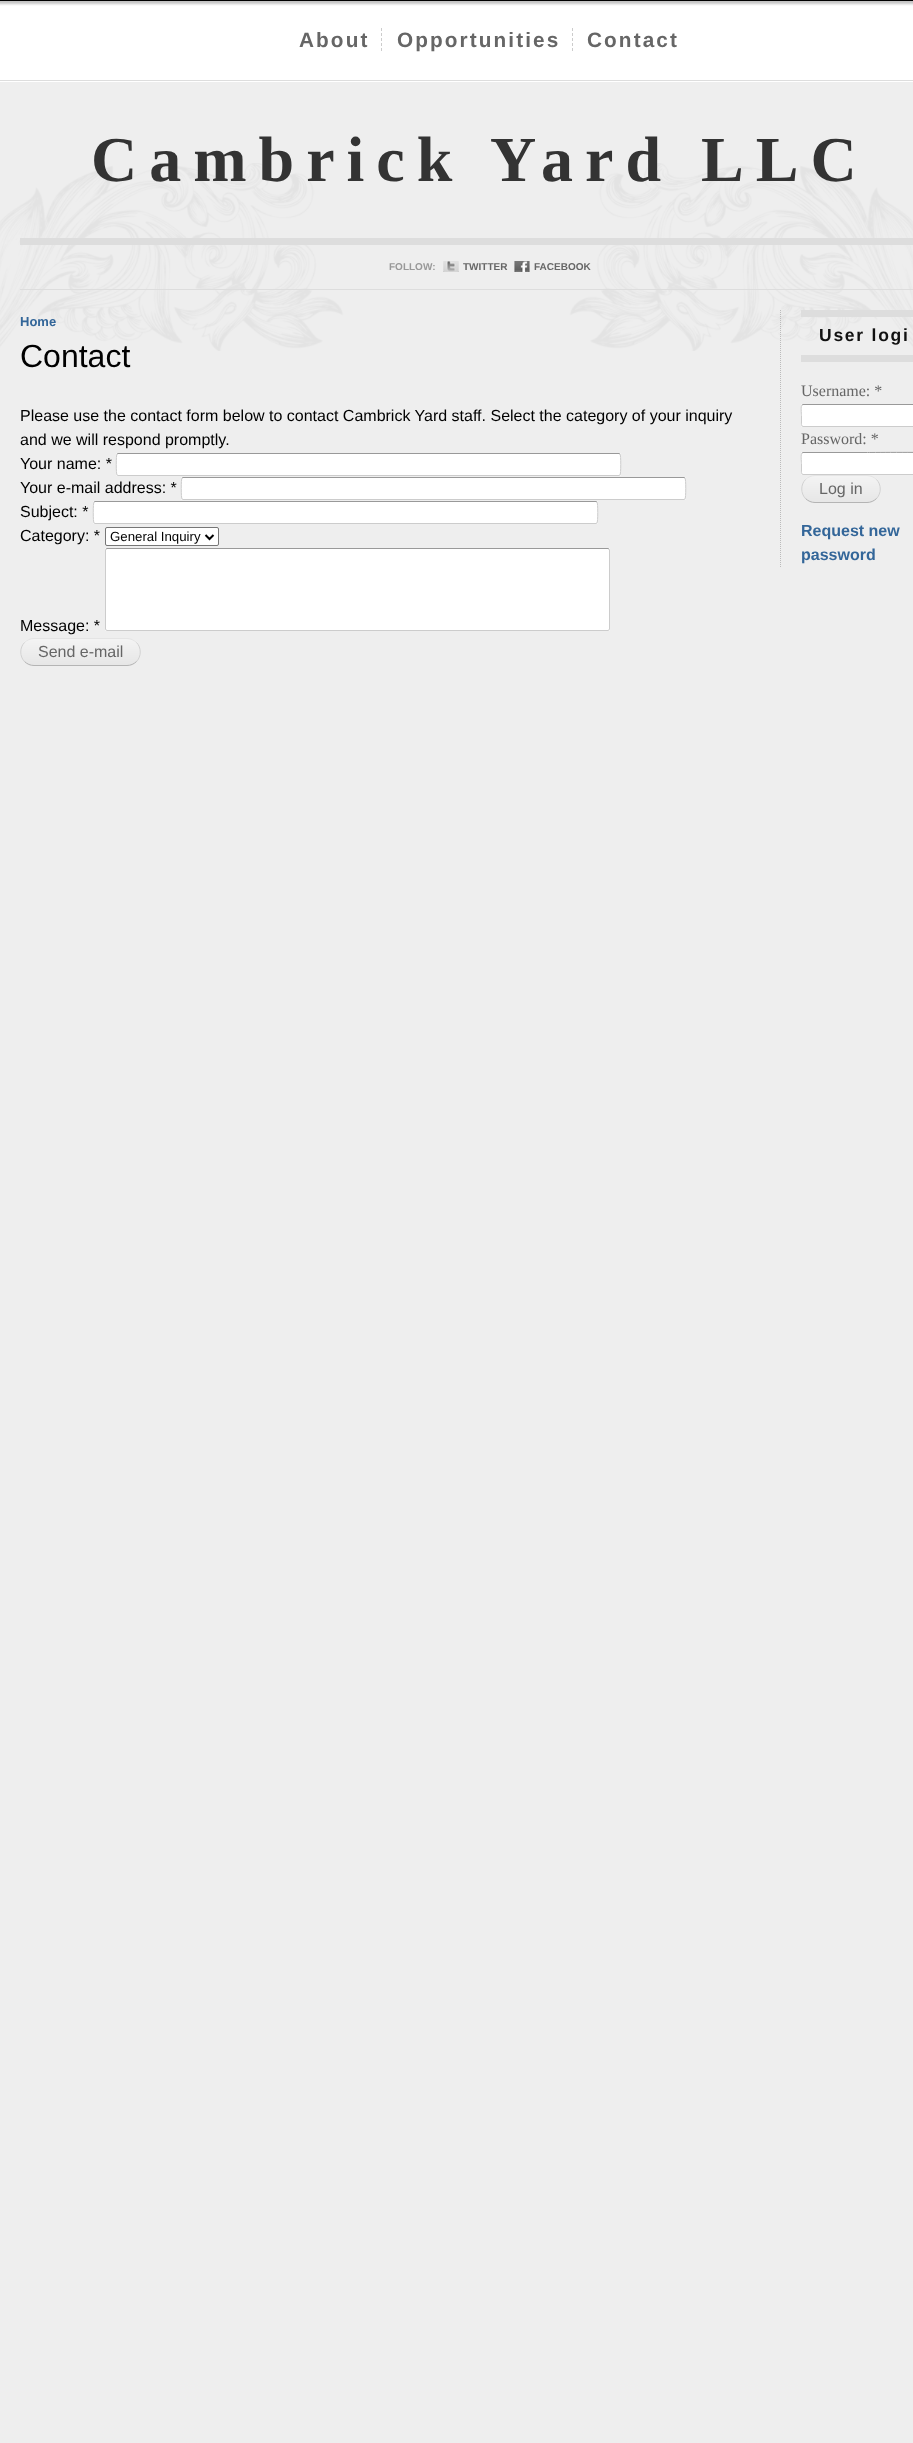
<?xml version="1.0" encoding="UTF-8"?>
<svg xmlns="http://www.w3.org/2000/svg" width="913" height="2443">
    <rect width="100%" height="100%" fill="#EEEEEE"/>
    <image x="0" y="163" width="913" height="188" href="img_01.png"/>
    <rect x="0" y="6" width="913" height="74" fill="#FFFFFF"/>
    <image x="0" y="0" width="913" height="6" href="img_02.png"/>
    <rect x="0" y="80" width="913" height="1" fill="#DDDDDD"/>
    <text x="299" y="47" font-family="Liberation Sans" font-size="20.75" font-weight="700" letter-spacing="2.1" fill="#666666">About</text>
    <path d="M 381.5 28 V 51" fill="none" stroke="#CCCCCC" stroke-dasharray="3 2"/>
    <text x="397" y="47" font-family="Liberation Sans" font-size="20.75" font-weight="700" letter-spacing="2.1" fill="#666666">Opportunities</text>
    <path d="M 572.5 28 V 51" fill="none" stroke="#CCCCCC" stroke-dasharray="3 2"/>
    <text x="587" y="47" font-family="Liberation Sans" font-size="20.75" font-weight="700" letter-spacing="2.1" fill="#666666">Contact</text>
    <rect x="0" y="81" width="913" height="1" fill="#FFFFFF"/>
    <text x="91" y="181" font-family="Liberation Serif" font-size="64" font-weight="700" letter-spacing="12" fill="#333333">Cambrick Yard LLC</text>
    <rect x="20" y="238" width="893" height="7" fill="#DDDDDD"/>
    <rect x="20" y="289" width="893" height="1" fill="#DDDDDD"/>
    <text x="389" y="270" font-family="Liberation Sans" font-size="10" font-weight="700" fill="#999999">FOLLOW:</text>
    <image x="443" y="261" width="16" height="11" href="img_03.png"/>
    <text x="463" y="270" font-family="Liberation Sans" font-size="10" font-weight="700" fill="#666666">TWITTER</text>
    <image x="514" y="261" width="16" height="11" href="img_04.png"/>
    <text x="534" y="270" font-family="Liberation Sans" font-size="10" font-weight="700" fill="#666666">FACEBOOK</text>
    <text x="20" y="326" font-family="Liberation Sans" font-size="13" font-weight="700" fill="#336699">Home</text>
    <text x="20" y="367" font-family="Liberation Sans" font-size="32" fill="#000000">Contact</text>
    <text font-family="Liberation Sans" font-size="16" fill="#000000">
        <tspan x="20" y="421">Please use the contact form below to contact Cambrick Yard staff. Select the category of your inquiry</tspan>
        <tspan x="20" y="445">and we will respond promptly.</tspan>
        <tspan x="20" y="469">Your name: *</tspan>
    </text>
    <rect x="116" y="453" width="505" height="23" rx="2" fill="#FFFFFF"/>
    <path d="M 117 454 L 118 453.5 H 619 L 620 454" fill="none" stroke="#999999"/>
    <path d="M 620 454 C 621 454.5 621 474.5 620 475 L 619 475.5 H 118 L 117 475 C 116 474.5 116 454.5 117 454" fill="none" stroke="#CCCCCC"/>
    <text x="20" y="493" font-family="Liberation Sans" font-size="16" fill="#000000">Your e-mail address: *</text>
    <rect x="181" y="477" width="505" height="23" rx="2" fill="#FFFFFF"/>
    <path d="M 182 478 L 183 477.5 H 684 L 685 478" fill="none" stroke="#999999"/>
    <path d="M 685 478 C 686 478.5 686 498.5 685 499 L 684 499.5 H 183 L 182 499 C 181 498.5 181 478.5 182 478" fill="none" stroke="#CCCCCC"/>
    <text x="20" y="517" font-family="Liberation Sans" font-size="16" fill="#000000">Subject: *</text>
    <rect x="93" y="501" width="505" height="23" rx="2" fill="#FFFFFF"/>
    <path d="M 94 502 L 95 501.5 H 596 L 597 502" fill="none" stroke="#999999"/>
    <path d="M 597 502 C 598 502.5 598 522.5 597 523 L 596 523.5 H 95 L 94 523 C 93 522.5 93 502.5 94 502" fill="none" stroke="#CCCCCC"/>
    <text x="20" y="541" font-family="Liberation Sans" font-size="16" fill="#000000">Category: *</text>
    <rect x="105.5" y="527.5" width="113" height="18" rx="1.5" fill="#FFFFFF" stroke="#767676"/>
    <path d="M 205.5 535 L 209.5 539 L 213.5 535" fill="none" stroke="#000000" stroke-width="2"/>
    <text x="110" y="541" font-family="Liberation Sans" font-size="13.25" fill="#000000">General Inquiry</text>
    <text x="20" y="631" font-family="Liberation Sans" font-size="16" fill="#000000">Message: *</text>
    <rect x="105" y="548" width="505" height="83" rx="2" fill="#FFFFFF"/>
    <path d="M 106 549 L 107 548.5 H 608 L 609 549" fill="none" stroke="#999999"/>
    <path d="M 609 549 L 609.5 550 V 629 L 609 630 L 608 630.5 H 107 L 106 630 L 105.5 629 V 550 L 106 549" fill="none" stroke="#CCCCCC"/>
    <image x="22" y="639" width="117" height="27" href="img_05.png"/>
    <path d="M 24.5 642.5 C 27 640 30.5 638.5 34 638.5 H 127 C 130.5 638.5 134 640 136.5 642.5" fill="none" stroke="#E4E4E4"/>
    <path d="M 136.5 642.5 C 141.5 647.5 141.5 656.5 136.5 661.5" fill="none" stroke="#D2D2D2"/>
    <path d="M 136.5 661.5 C 134 664 130.5 665.5 127 665.5 H 34 C 30.5 665.5 27 664 24.5 661.5" fill="none" stroke="#B4B4B4"/>
    <path d="M 24.5 661.5 C 19.5 656.5 19.5 647.5 24.5 642.5" fill="none" stroke="#D2D2D2"/>
    <text x="38" y="657" font-family="Liberation Sans" font-size="16" fill="#666666">Send e-mail</text>
    <path d="M 780.5 310 V 567" fill="none" stroke="#BBBBBB" stroke-dasharray="1 1"/>
    <rect x="801" y="310" width="112" height="7" fill="#DDDDDD"/>
    <rect x="801" y="355" width="112" height="7" fill="#DDDDDD"/>
    <text x="819" y="341" font-family="Liberation Sans" font-size="17.5" font-weight="700" letter-spacing="1.75" fill="#111111">User logi</text>
    <text x="801" y="396" font-family="Liberation Serif" font-size="16" fill="#666666">Username: *</text>
    <rect x="801" y="404" width="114" height="23" rx="2" fill="#FFFFFF"/>
    <path d="M 802 405 L 803 404.5 H 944.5 L 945 405" fill="none" stroke="#999999"/>
    <path d="M 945 405 C 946.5 406 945.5 413.5 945.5 415.5 V 422 C 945.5 423 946 426.5 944 426.5 H 803 C 801 426.5 801.5 423 801.5 422 V 415.5 C 801.5 413.5 800.5 406 802 405" fill="none" stroke="#CCCCCC"/>
    <text x="801" y="444" font-family="Liberation Serif" font-size="16" fill="#666666">Password: *</text>
    <rect x="801" y="452" width="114" height="23" rx="2" fill="#FFFFFF"/>
    <path d="M 802 453 L 803 452.5 H 867.5 C 873.5 452.5 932 452 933 453" fill="none" stroke="#999999"/>
    <path d="M 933 453 C 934.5 454 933.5 461.5 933.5 463.5 V 470 C 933.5 471 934 474.5 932 474.5 H 803 C 801 474.5 801.5 471 801.5 470 V 463.5 C 801.5 461.5 800.5 454 802 453" fill="none" stroke="#CCCCCC"/>
    <image x="803" y="476" width="76" height="27" href="img_06.png"/>
    <path d="M 805.5 479.5 C 808 477 811.5 475.5 815 475.5 H 867 C 870.5 475.5 874 477 876.5 479.5" fill="none" stroke="#E4E4E4"/>
    <path d="M 876.5 479.5 C 881.5 484.5 881.5 493.5 876.5 498.5" fill="none" stroke="#D2D2D2"/>
    <path d="M 876.5 498.5 C 874 501 870.5 502.5 867 502.5 H 815 C 811.5 502.5 808 501 805.5 498.5" fill="none" stroke="#B4B4B4"/>
    <path d="M 805.5 498.5 C 800.5 493.5 800.5 484.5 805.5 479.5" fill="none" stroke="#D2D2D2"/>
    <text x="819" y="494" font-family="Liberation Sans" font-size="16" fill="#666666">Log in</text>
    <text font-family="Liberation Sans" font-size="16" font-weight="700" fill="#336699">
        <tspan x="801" y="536">Request new</tspan>
        <tspan x="801" y="560">password</tspan>
    </text>
</svg>
